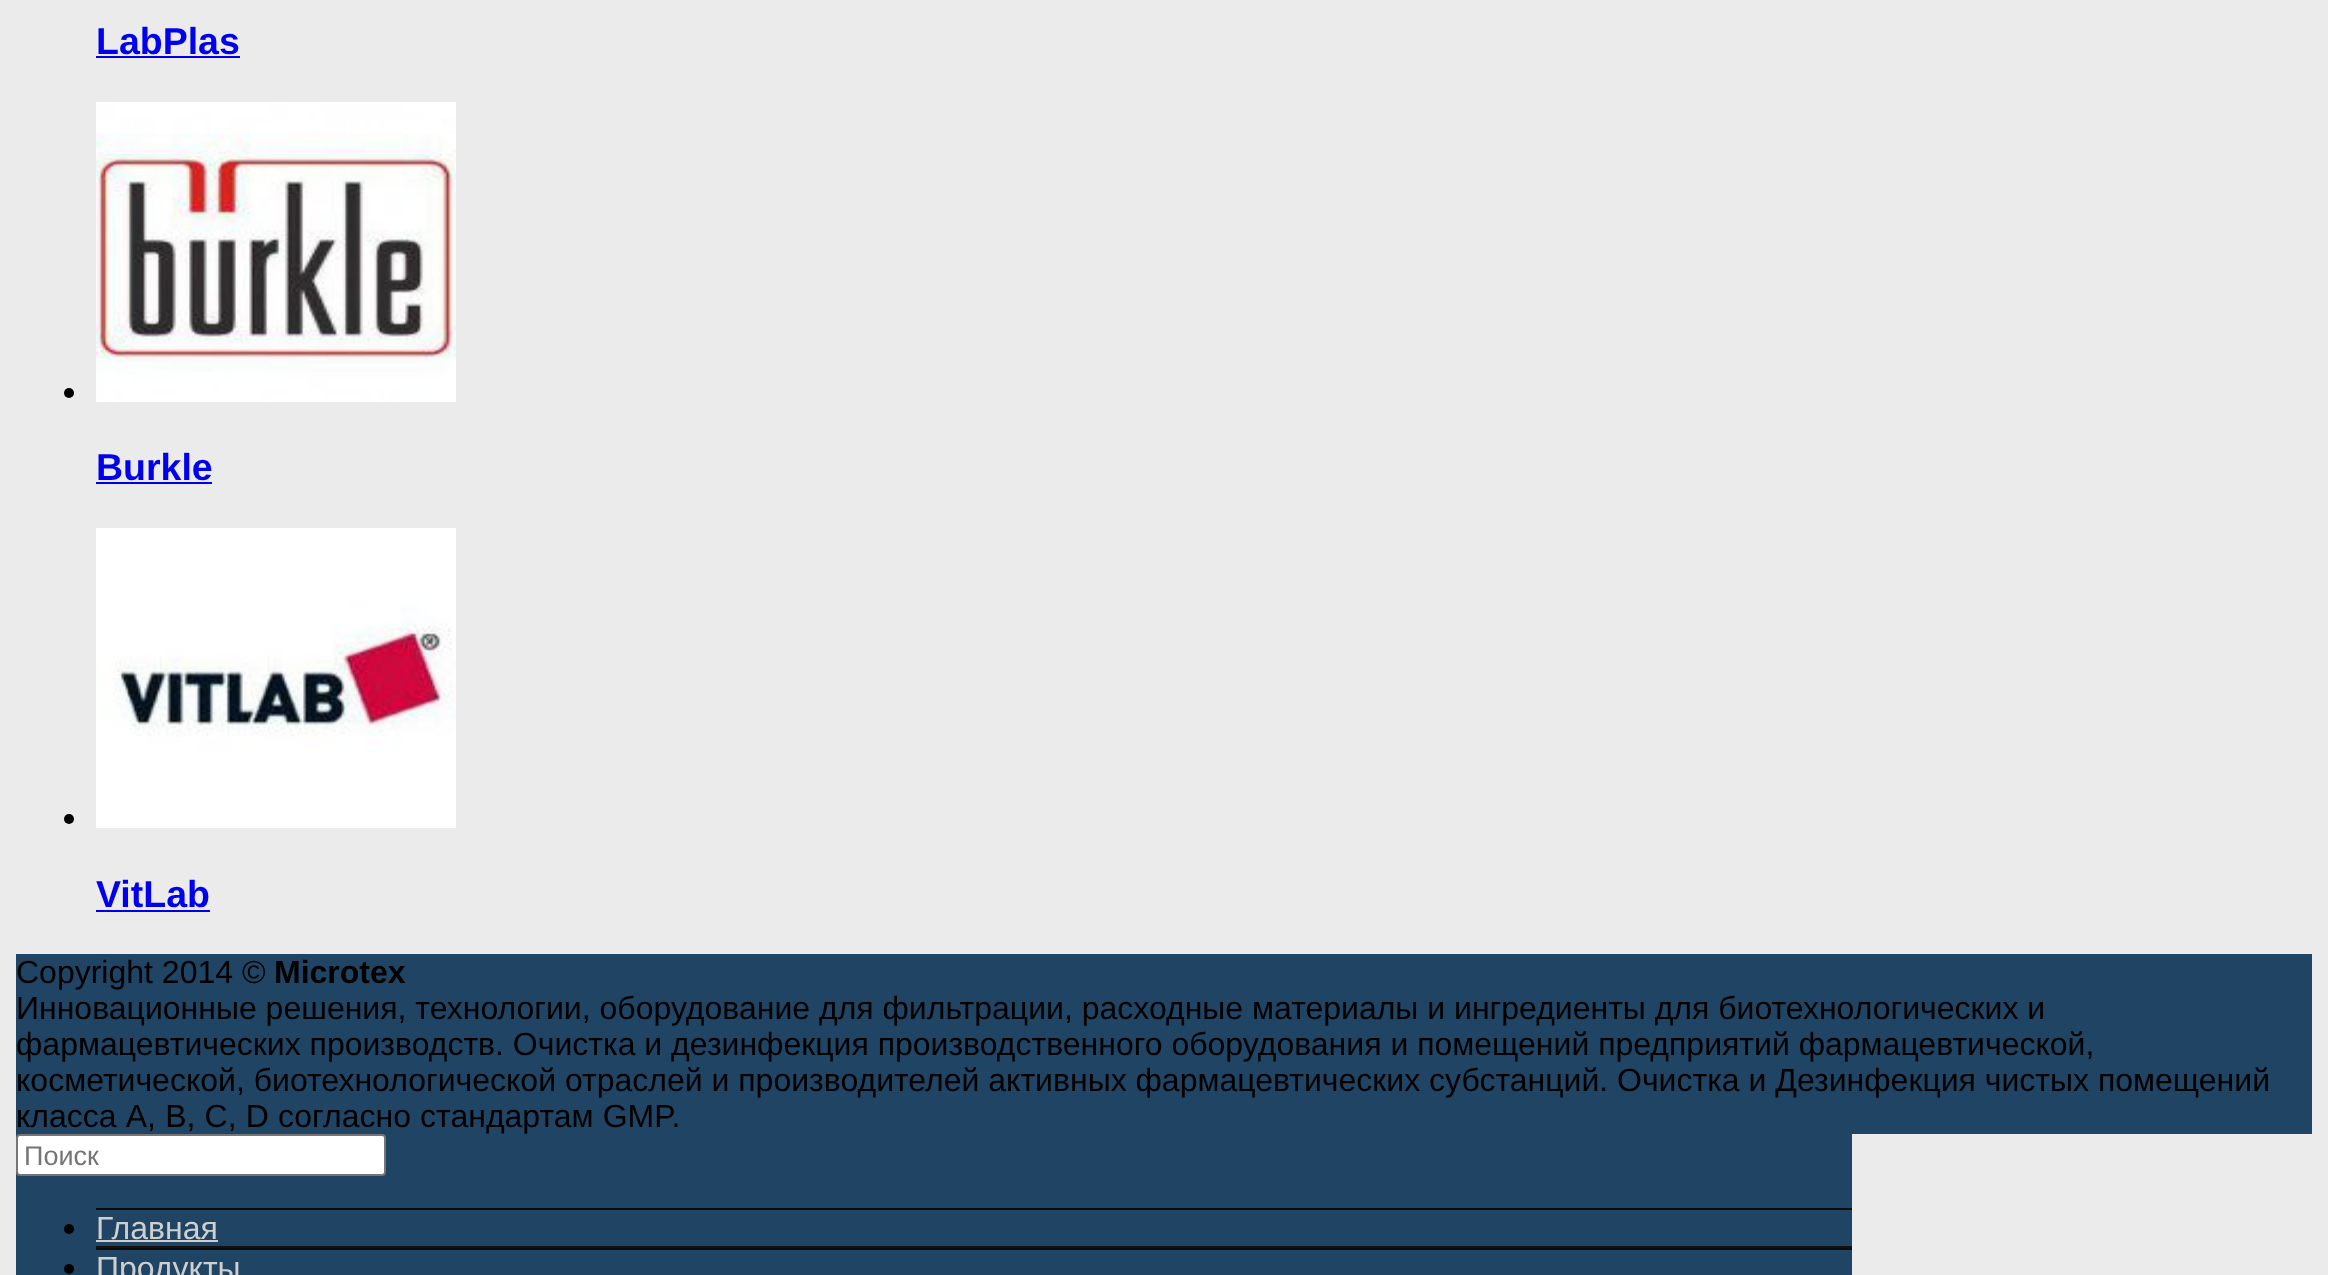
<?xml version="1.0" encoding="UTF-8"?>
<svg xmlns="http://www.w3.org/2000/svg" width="2328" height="1275">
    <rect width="100%" height="100%" fill="#EBEBEB"/>
    <text x="96" y="54" font-family="Liberation Sans" font-size="37.5" font-weight="700" fill="#0000EE">LabPlas</text>
    <rect x="96" y="56" width="144" height="2" fill="#0000EE"/>
    <circle cx="69" cy="393" r="5" fill="#000000"/>
    <image x="96" y="102" width="360" height="300" href="img_01.png"/>
    <text x="96" y="480" font-family="Liberation Sans" font-size="37.5" font-weight="700" fill="#0000EE">Burkle</text>
    <rect x="96" y="482" width="116" height="2" fill="#0000EE"/>
    <circle cx="69" cy="819" r="5" fill="#000000"/>
    <image x="96" y="528" width="360" height="300" href="img_02.png"/>
    <text x="96" y="907" font-family="Liberation Sans" font-size="37.5" font-weight="700" fill="#0000EE">VitLab</text>
    <rect x="96" y="910" width="114" height="2" fill="#0000EE"/>
    <rect x="16" y="954" width="2296" height="180" fill="#204464"/>
    <text x="16" y="983" font-family="Liberation Sans" font-size="32" fill="#000000">Copyright 2014 ©</text>
    <text x="274" y="983" font-family="Liberation Sans" font-size="32" font-weight="700" fill="#000000">Microtex</text>
    <text font-family="Liberation Sans" font-size="32" fill="#000000">
        <tspan x="16" y="1019">Инновационные решения, технологии, оборудование для фильтрации, расходные материалы и ингредиенты для биотехнологических и</tspan>
        <tspan x="16" y="1055">фармацевтических производств. Очистка и дезинфекция производственного оборудования и помещений предприятий фармацевтической,</tspan>
        <tspan x="16" y="1091">косметической, биотехнологической отраслей и производителей активных фармацевтических субстанций. Очистка и Дезинфекция чистых помещений</tspan>
        <tspan x="16" y="1127" word-spacing="0.25">класса A, B, C, D согласно стандартам GMP.</tspan>
    </text>
    <rect x="16" y="1134" width="1836" height="141" fill="#204464"/>
    <rect x="17" y="1135" width="368" height="40" rx="3" fill="#FFFFFF" stroke="#767676" stroke-width="2"/>
    <text x="24" y="1165" font-family="Liberation Sans" font-size="27" fill="#757575">Поиск</text>
    <rect x="96" y="1208" width="1756" height="2" fill="#0D0D0D"/>
    <rect x="96" y="1246" width="1756" height="2" fill="#131212"/>
    <circle cx="69" cy="1229" r="5" fill="#000000"/>
    <text x="96" y="1239" font-family="Liberation Sans" font-size="32" fill="#CFCFCF">Главная</text>
    <rect x="96" y="1240" width="122" height="2" fill="#CFCFCF"/>
    <rect x="96" y="1248" width="1756" height="2" fill="#0D0D0D"/>
    <circle cx="69" cy="1269" r="5" fill="#000000"/>
    <text x="96" y="1279" font-family="Liberation Sans" font-size="32" fill="#CFCFCF">Продукты</text>
</svg>
